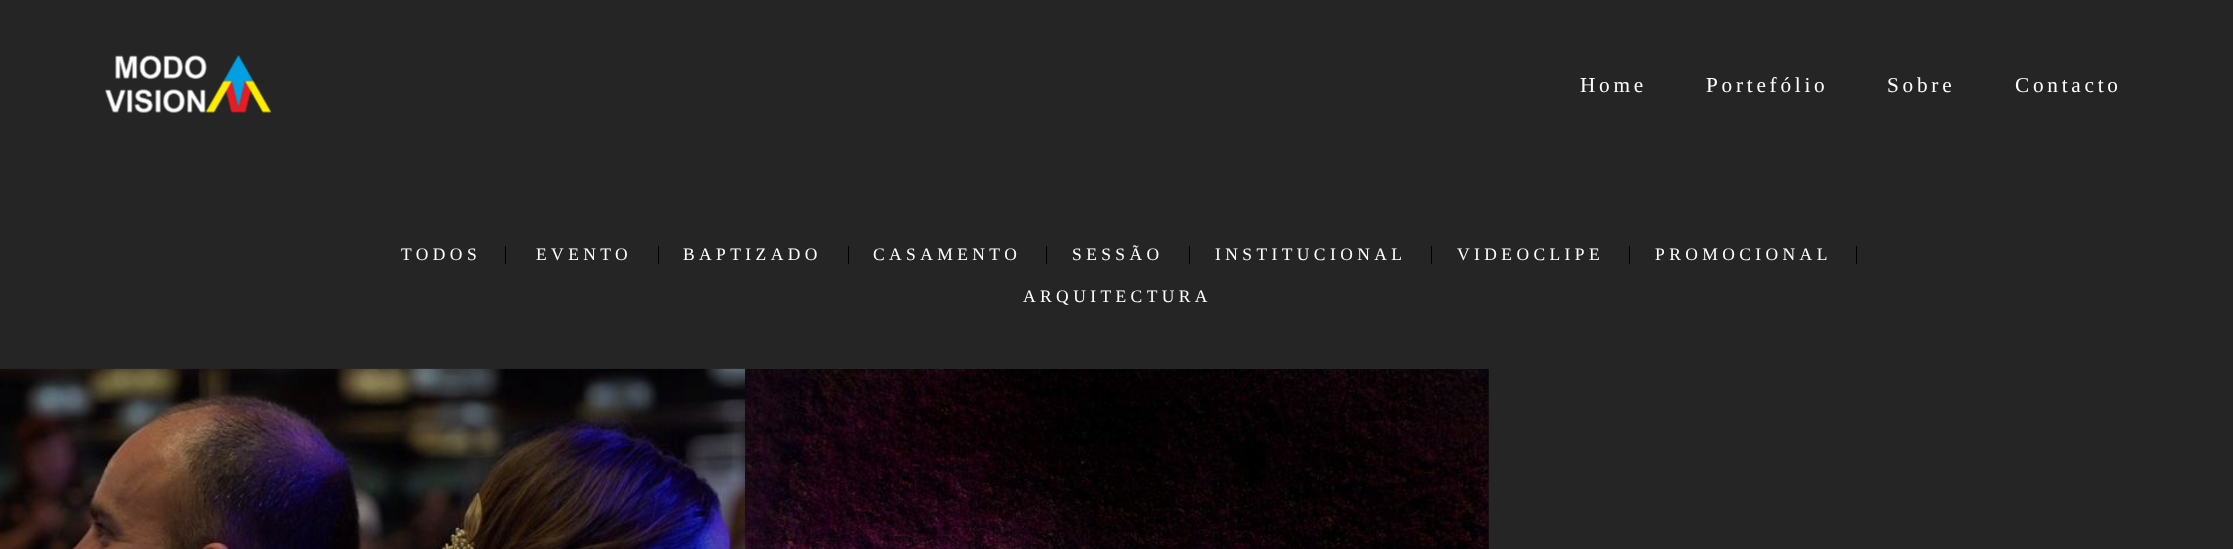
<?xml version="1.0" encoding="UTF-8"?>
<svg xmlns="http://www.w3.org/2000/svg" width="2233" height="549">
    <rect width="100%" height="100%" fill="#252525"/>
    <rect x="1488" y="369" width="1" height="180" fill="#1A1A1A"/>
    <image x="105" y="55" width="167" height="58" href="img_01.png"/>
    <text x="1580" y="92" font-family="Liberation Serif" font-size="21.25" letter-spacing="3.75" fill="#FFFFFF">Home</text>
    <text x="1706" y="92" font-family="Liberation Serif" font-size="21.25" letter-spacing="3.75" fill="#FFFFFF">Portefólio</text>
    <text x="1887" y="92" font-family="Liberation Serif" font-size="21.25" letter-spacing="3.75" fill="#FFFFFF">Sobre</text>
    <text x="2015" y="92" font-family="Liberation Serif" font-size="21.25" letter-spacing="3.75" fill="#FFFFFF">Contacto</text>
    <rect x="505" y="246" width="1" height="18" fill="#000000"/>
    <text x="401" y="260" font-family="Liberation Serif" font-size="17.5" letter-spacing="4.4" fill="#FFFFFF">TODOS</text>
    <rect x="658" y="246" width="1" height="18" fill="#000000"/>
    <text x="536" y="260" font-family="Liberation Serif" font-size="17.5" letter-spacing="4.4" fill="#FFFFFF">EVENTO</text>
    <rect x="848" y="246" width="1" height="18" fill="#000000"/>
    <text x="683" y="260" font-family="Liberation Serif" font-size="17.5" letter-spacing="4.4" fill="#FFFFFF">BAPTIZADO</text>
    <rect x="1046" y="246" width="1" height="18" fill="#000000"/>
    <text x="873" y="260" font-family="Liberation Serif" font-size="17.5" letter-spacing="4.4" fill="#FFFFFF">CASAMENTO</text>
    <rect x="1189" y="246" width="1" height="18" fill="#000000"/>
    <text x="1072" y="260" font-family="Liberation Serif" font-size="17.5" letter-spacing="4.4" fill="#FFFFFF">SESSÃO</text>
    <rect x="1431" y="246" width="1" height="18" fill="#000000"/>
    <text x="1215" y="260" font-family="Liberation Serif" font-size="17.5" letter-spacing="4.4" fill="#FFFFFF">INSTITUCIONAL</text>
    <rect x="1629" y="246" width="1" height="18" fill="#000000"/>
    <text x="1457" y="260" font-family="Liberation Serif" font-size="17.5" letter-spacing="4.4" fill="#FFFFFF">VIDEOCLIPE</text>
    <rect x="1856" y="246" width="1" height="18" fill="#000000"/>
    <text x="1655" y="260" font-family="Liberation Serif" font-size="17.5" letter-spacing="4.4" fill="#FFFFFF">PROMOCIONAL</text>
    <text x="1023" y="302" font-family="Liberation Serif" font-size="17.5" letter-spacing="4.4" fill="#FFFFFF">ARQUITECTURA</text>
    <image x="0" y="368" width="745" height="181" href="img_02.png"/>
    <image x="745" y="369" width="744" height="180" href="img_03.png"/>
</svg>
